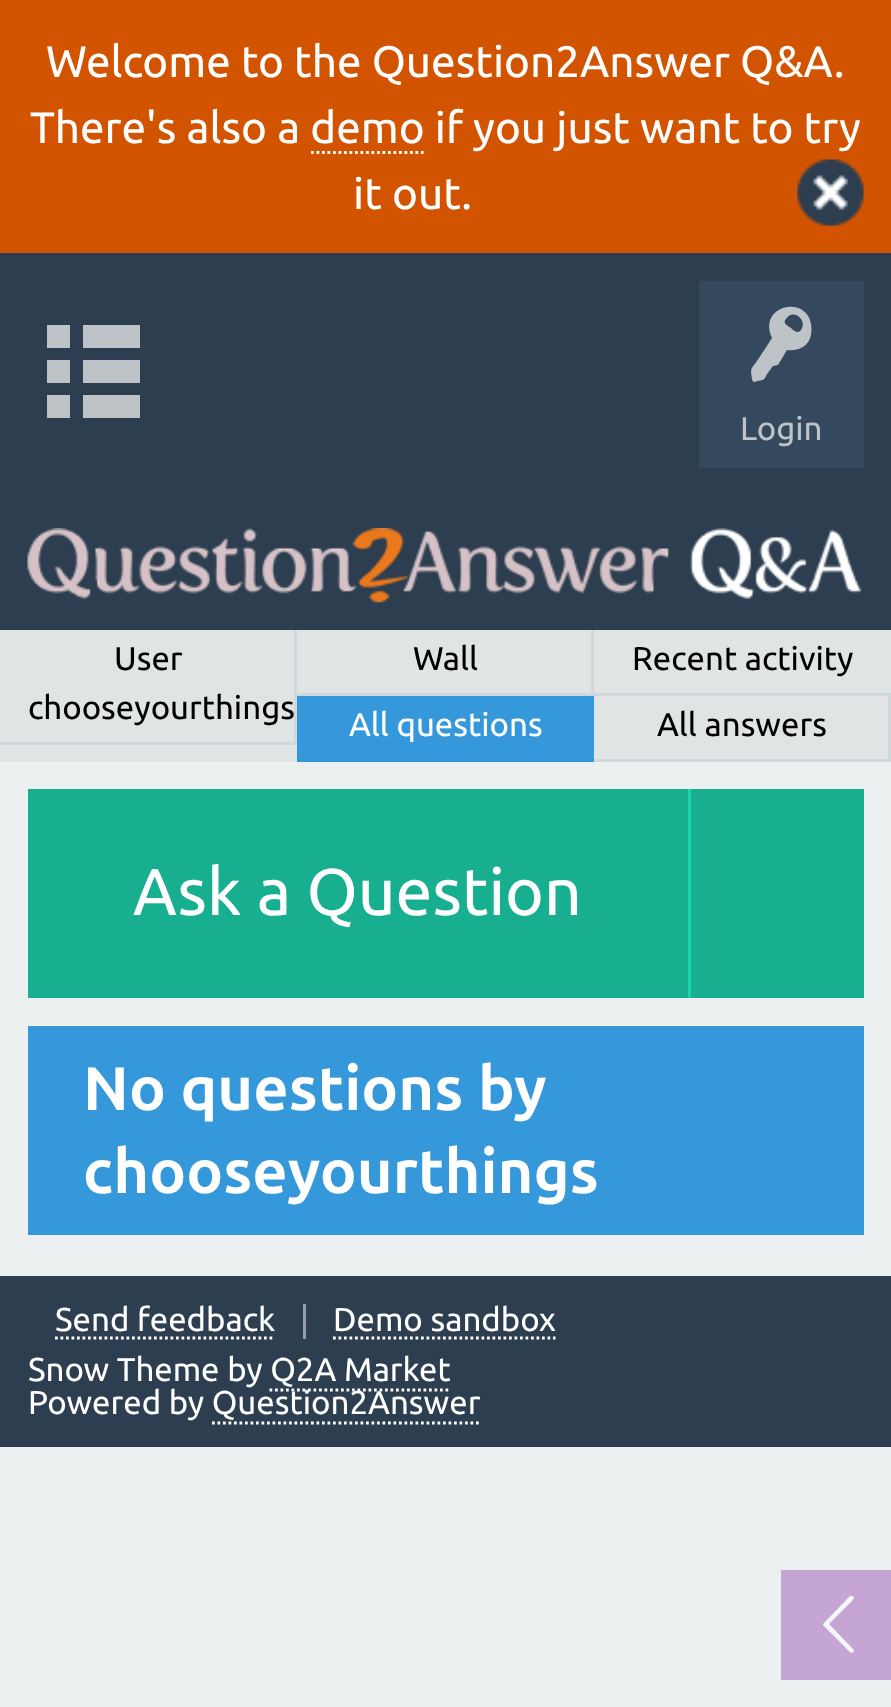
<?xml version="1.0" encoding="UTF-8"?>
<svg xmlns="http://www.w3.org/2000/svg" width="891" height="1707">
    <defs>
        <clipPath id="clip1"><rect x="0" y="630" width="297" height="115"/></clipPath>
        <clipPath id="clip2"><rect x="297" y="630" width="297" height="66"/></clipPath>
        <clipPath id="clip3"><rect x="594" y="696" width="297" height="66"/></clipPath>
    </defs>
    <rect width="100%" height="100%" fill="#ECF0F1"/>
    <rect x="0" y="0" width="891" height="253" fill="#D35400"/>
    <text x="46" y="77" font-family="Ubuntu" font-size="44" fill="#FFFFFF">Welcome to the Question2Answer Q&amp;A.</text>
    <text x="30" y="143" font-family="Ubuntu" font-size="44" fill="#FFFFFF">There's also a demo if you just want to try</text>
    <path d="M 311 152.5 H 423.5" fill="none" stroke="#FFFFFF" stroke-width="2.8" stroke-dasharray="2.75 2.75"/>
    <text x="353" y="209" font-family="Ubuntu" font-size="44" fill="#FFFFFF">it out.</text>
    <image x="797" y="159" width="67" height="67" href="img_01.png"/>
    <rect x="0" y="253" width="891" height="377" fill="#2C3E50"/>
    <path d="M 47 418 V 395 H 70 V 418 Z M 47 383 V 360 H 70 V 383 Z M 47 348 V 325 H 70 V 348 Z M 83 418 V 395 H 140 V 418 Z M 83 383 V 360 H 140 V 383 Z M 83 348 V 325 H 140 V 348 Z" fill="#BDC3C7"/>
    <rect x="699" y="281" width="165" height="187" fill="#34495E"/>
    <path d="M 811 324 C 814 341 804 352 787 350 L 778 365 L 773 366 L 767 374 C 764 380 764 380 758 381 C 754 382 753 383 752 379 C 750 367 751 370 759 358 L 772 338 C 757 306 806 294 811 324 Z M 801 330 C 808 320 793 308 786 319 C 782 323 788 326 791 328 C 794 331 798 334 801 330 Z" fill="#BDC3C7"/>
    <text x="740" y="440" font-family="Ubuntu" font-size="33" fill="#BDC3C7">Login</text>
    <image x="27" y="528" width="834" height="75" href="img_02.png"/>
    <rect x="0" y="630" width="891" height="132" fill="#E0E4E5"/>
    <g clip-path="url(#clip1)">
        <path d="M -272 358 H 569 V 1018 H -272 Z M -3 627 H 294 V 742 H -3 Z" fill="#CFD9DB" fill-rule="evenodd"/>
    </g>
    <text x="114" y="670" font-family="Ubuntu" font-size="33" fill="#000000">User</text>
    <text x="28" y="719" font-family="Ubuntu" font-size="33" fill="#000000">chooseyourthings</text>
    <g clip-path="url(#clip2)">
        <path d="M 25 358 H 866 V 968 H 25 Z M 294 627 H 591 V 693 H 294 Z" fill="#CFD9DB" fill-rule="evenodd"/>
    </g>
    <text x="413" y="670" font-family="Ubuntu" font-size="33" fill="#000000">Wall</text>
    <rect x="594" y="693" width="297" height="3" fill="#CFD9DB"/>
    <text x="632" y="670" font-family="Ubuntu" font-size="33" fill="#000000">Recent activity</text>
    <rect x="297" y="696" width="297" height="66" fill="#3498DB"/>
    <text x="349" y="736" font-family="Ubuntu" font-size="33" fill="#FFFFFF">All questions</text>
    <g clip-path="url(#clip3)">
        <path d="M 322 424 H 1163 V 1034 H 322 Z M 591 693 H 888 V 759 H 591 Z" fill="#CFD9DB" fill-rule="evenodd"/>
    </g>
    <text x="657" y="736" font-family="Ubuntu" font-size="33" fill="#000000">All answers</text>
    <rect x="28" y="789" width="660" height="209" fill="#18AF91"/>
    <text x="133" y="915" font-family="Ubuntu" font-size="66" fill="#FFFFFF">Ask a Question</text>
    <rect x="691" y="789" width="173" height="209" fill="#18AF91"/>
    <rect x="688" y="789" width="3" height="209" fill="#1DD2AF"/>
    <rect x="28" y="1026" width="836" height="209" fill="#3498DB"/>
    <text font-family="Ubuntu" font-size="61.5" font-weight="700" fill="#FFFFFF">
        <tspan x="83" y="1110">No questions by</tspan>
        <tspan x="83" y="1193">chooseyourthings</tspan>
    </text>
    <rect x="781" y="1570" width="110" height="110" fill="#C4A5D4"/>
    <path d="M 853 1649 L 854 1651 C 852 1656 846 1648 845 1647 L 823 1625 V 1624 L 850 1596 H 852 C 857 1597 850 1603 849 1604 L 829 1624 Z" fill="#F6F8F8"/>
    <rect x="0" y="1276" width="891" height="171" fill="#2C3E50"/>
    <rect x="303" y="1304" width="3" height="35" fill="#969FA8"/>
    <path d="M 55 1338 H 275" fill="none" stroke="#FFFFFF" stroke-width="2.8" stroke-dasharray="2.75 2.75"/>
    <text x="55" y="1331" font-family="Ubuntu" font-size="33" fill="#FFFFFF">Send feedback</text>
    <path d="M 333 1338 H 555.5" fill="none" stroke="#FFFFFF" stroke-width="2.8" stroke-dasharray="2.75 2.75"/>
    <text x="333" y="1331" font-family="Ubuntu" font-size="33" fill="#FFFFFF">Demo sandbox</text>
    <text x="28" y="1381" font-family="Ubuntu" font-size="33" fill="#FFFFFF">Snow Theme by Q2A Market</text>
    <path d="M 269.5 1390 H 451" fill="none" stroke="#FFFFFF" stroke-width="2.8" stroke-dasharray="2.75 2.75"/>
    <text x="28" y="1414" font-family="Ubuntu" font-size="33" fill="#FFFFFF">Powered by Question2Answer</text>
    <path d="M 212 1423 H 481" fill="none" stroke="#FFFFFF" stroke-width="2.8" stroke-dasharray="2.75 2.75"/>
</svg>
